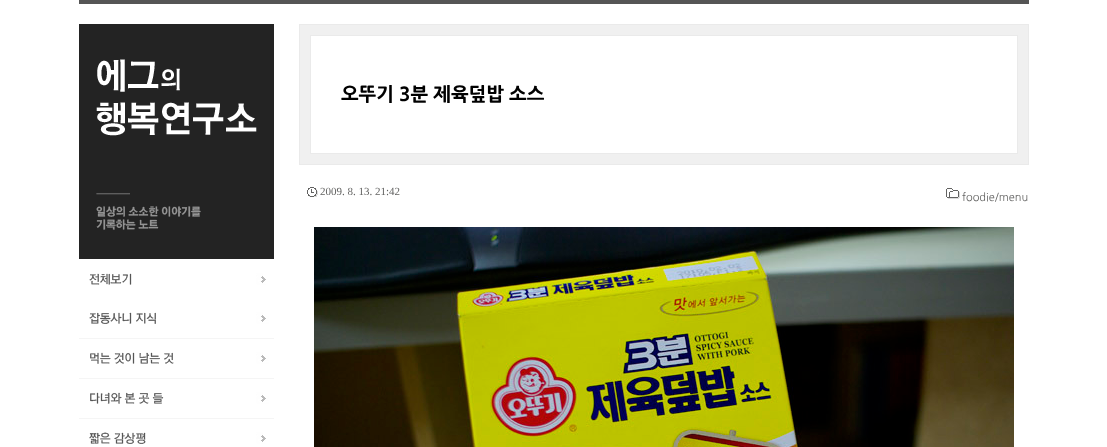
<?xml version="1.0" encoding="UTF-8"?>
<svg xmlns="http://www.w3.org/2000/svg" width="1107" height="447">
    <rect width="100%" height="100%" fill="#FFFFFF"/>
    <rect x="79" y="0" width="950" height="4" fill="#555555"/>
    <image x="79" y="24" width="195" height="235" href="img_01.png"/>
    <rect x="299.5" y="24.5" width="729" height="140" fill="#F0F0F0" stroke="#EAEAEA"/>
    <rect x="310.5" y="35.5" width="707" height="118" fill="#FFFFFF" stroke="#EAEAEA"/>
    <text x="341" y="101" font-family="NanumGothic" font-size="18.75" font-weight="800" fill="#000000">오뚜기 3분 제육덮밥 소스</text>
    <image x="307" y="187" width="11" height="10" href="img_02.png"/>
    <text x="320" y="195" font-family="Liberation Serif" font-size="11" fill="#636362">2009. 8. 13. 21:42</text>
    <image x="946" y="188" width="14" height="11" href="img_03.png"/>
    <text x="962" y="201" font-family="NanumGothic" font-size="11" fill="#636362">foodie/menu</text>
    <image x="314" y="227" width="700" height="220" href="img_04.png"/>
    <image x="89" y="273" width="177" height="12" href="img_05.png"/>
    <image x="79" y="312" width="195" height="27" href="img_06.png"/>
    <image x="79" y="352" width="195" height="27" href="img_07.png"/>
    <image x="79" y="392" width="195" height="27" href="img_08.png"/>
    <image x="89" y="432" width="177" height="12" href="img_09.png"/>
</svg>
